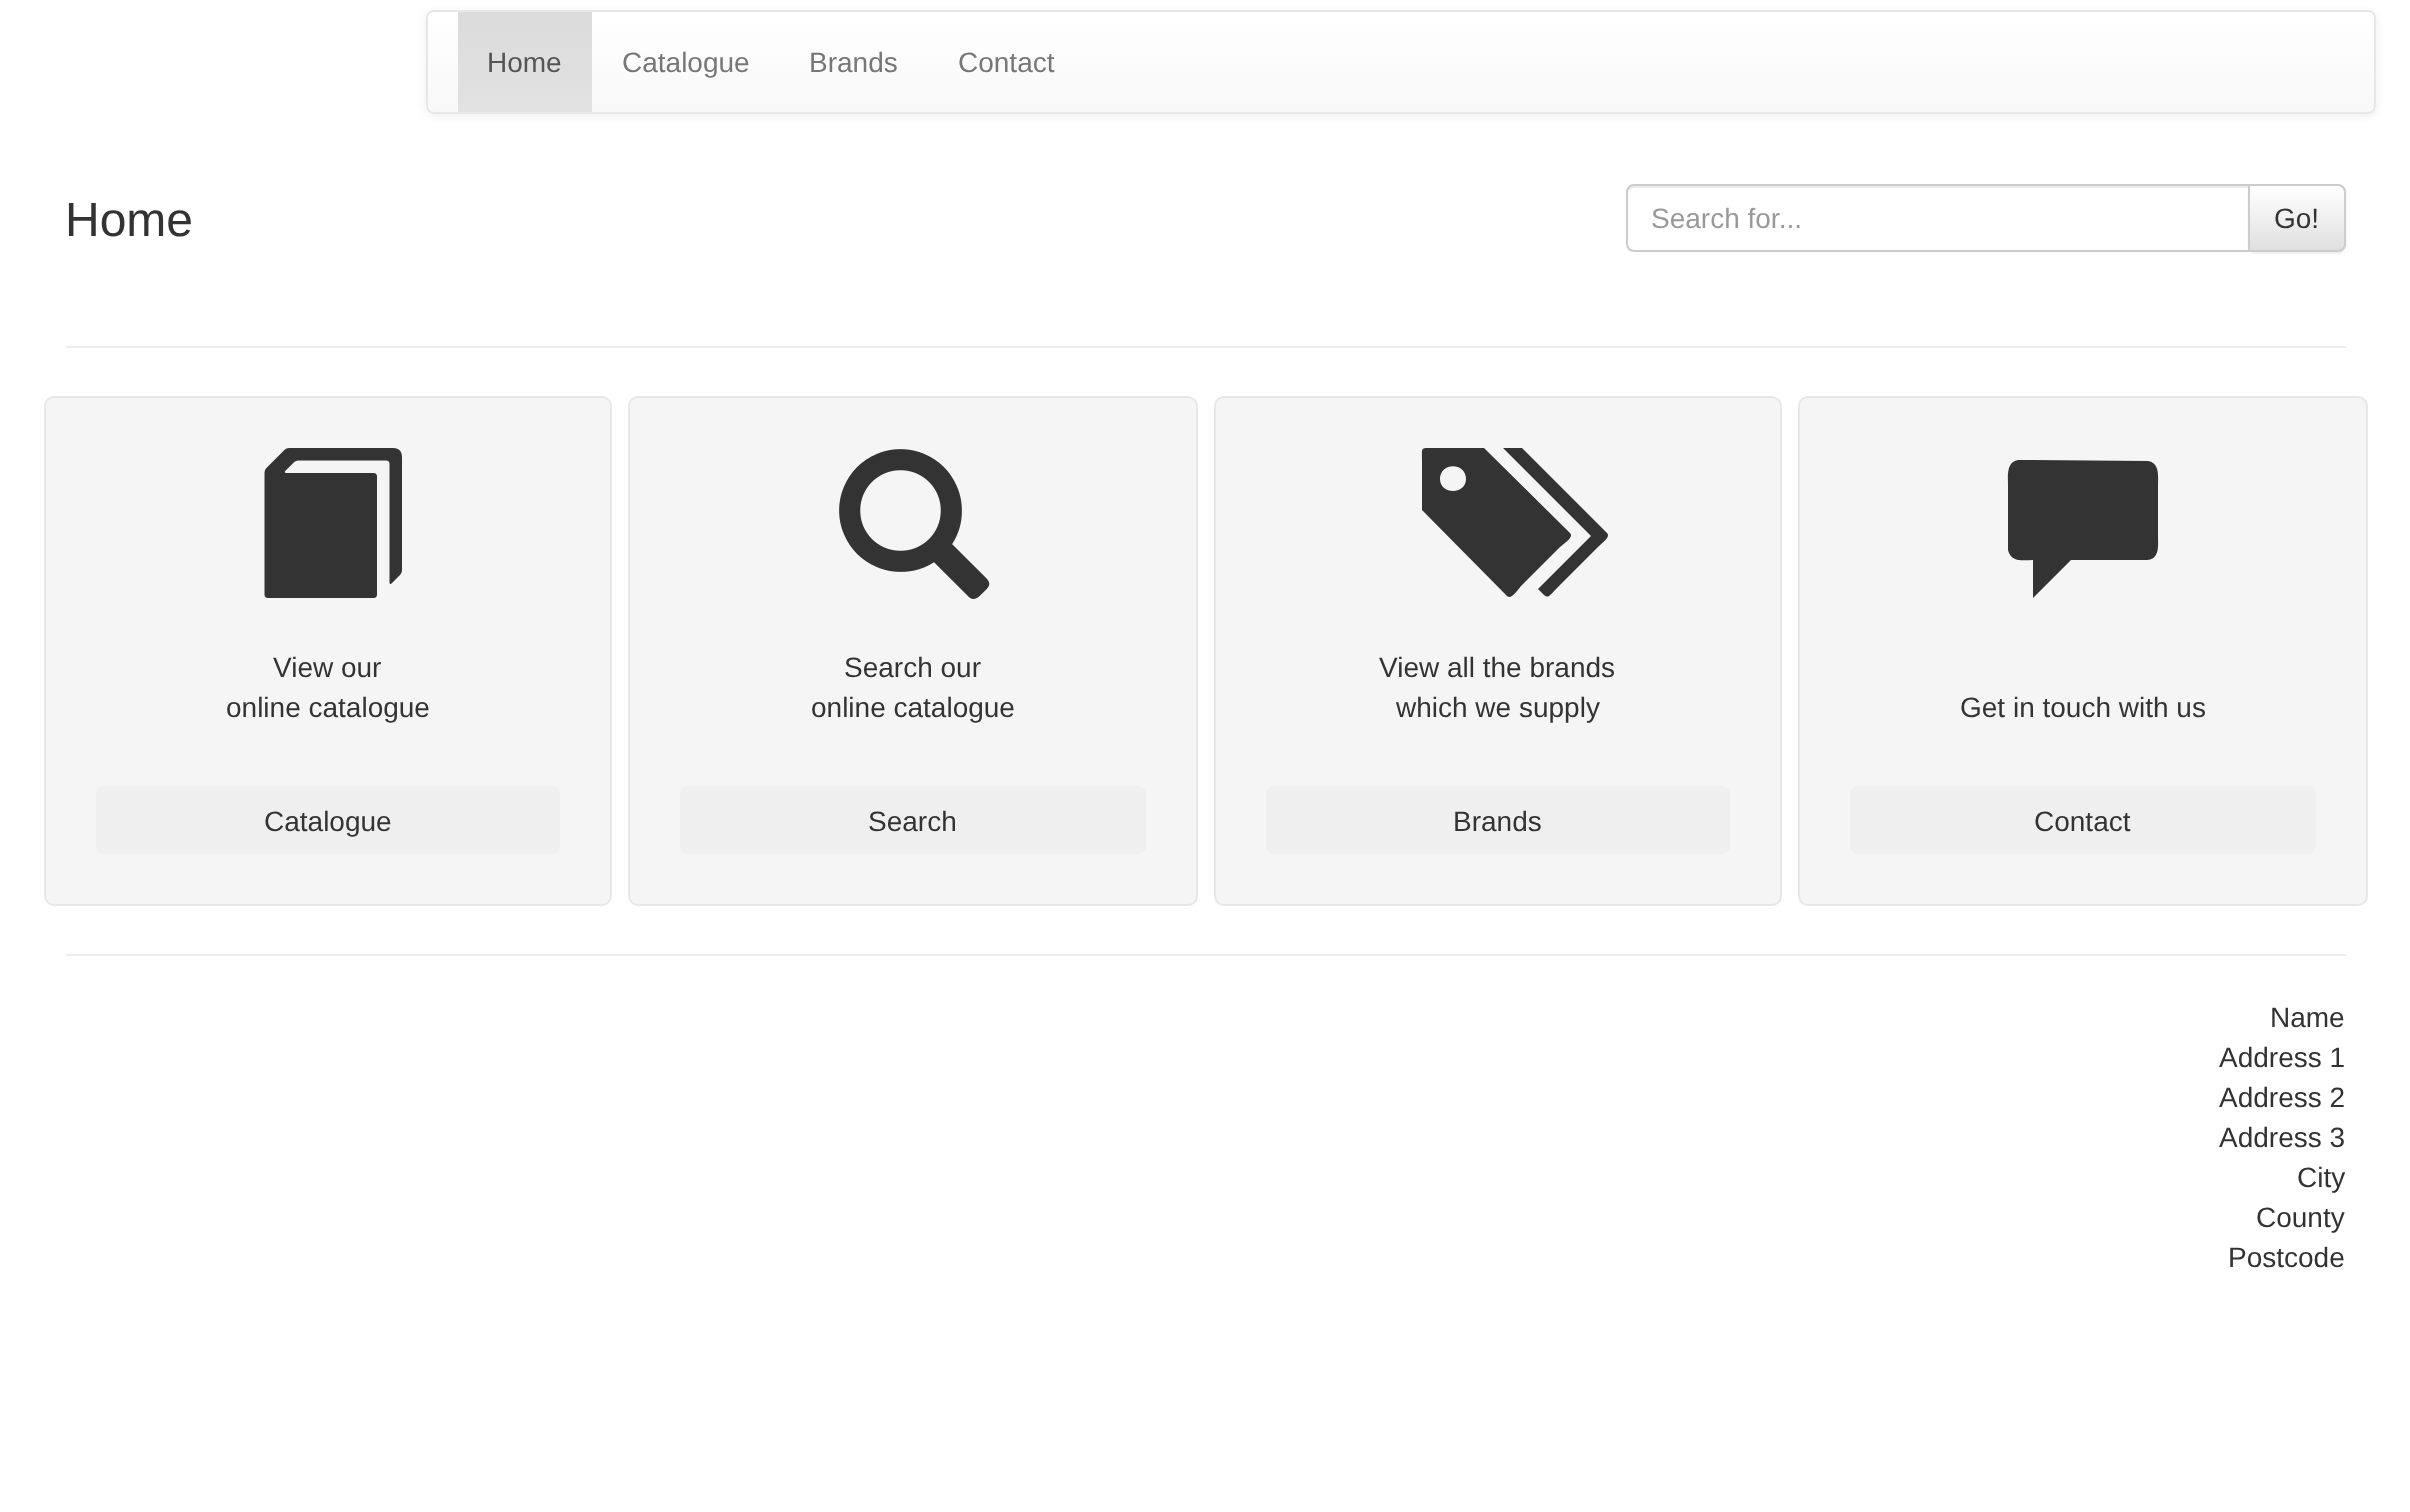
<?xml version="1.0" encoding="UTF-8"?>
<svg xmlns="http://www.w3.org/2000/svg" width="2410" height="1512">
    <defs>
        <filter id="blur1" x="-50%" y="-200%" width="200%" height="500%"><feGaussianBlur stdDeviation="5"/></filter>
        <clipPath id="clip1"><rect x="426" y="10" width="1950" height="104" rx="8"/></clipPath>
        <linearGradient id="g1" gradientUnits="userSpaceOnUse" x1="1401" y1="12" x2="1401" y2="112"><stop offset="0" stop-color="#FFFFFF"/><stop offset="1" stop-color="#F8F8F8"/></linearGradient>
        <linearGradient id="g2" gradientUnits="userSpaceOnUse" x1="525" y1="12" x2="525" y2="112"><stop offset="0" stop-color="#DBDBDB"/><stop offset="1" stop-color="#E2E2E2"/></linearGradient>
        <filter id="blur2" x="-50%" y="-200%" width="200%" height="500%"><feGaussianBlur stdDeviation="1"/></filter>
        <clipPath id="clip2"><path d="M 2248 184 H 2338 C 2342.5 184 2346 187.5 2346 192 V 244 C 2346 248.5 2342.5 252 2338 252 H 2248 Z"/></clipPath>
        <linearGradient id="g3" gradientUnits="userSpaceOnUse" x1="2297" y1="186" x2="2297" y2="250"><stop offset="0" stop-color="#FFFFFF"/><stop offset="1" stop-color="#E0E0E0"/></linearGradient>
    </defs>
    <rect width="100%" height="100%" fill="#FFFFFF"/>
    <rect x="426" y="12" width="1950" height="104" rx="8" fill="#000000" fill-opacity="0.07" filter="url(#blur1)"/>
    <g clip-path="url(#clip1)">
        <rect x="426" y="12" width="1950" height="100" fill="url(#g1)"/>
    </g>
    <rect x="427" y="11" width="1948" height="102" rx="7" fill="none" stroke="#E7E7E7" stroke-width="2"/>
    <rect x="458" y="12" width="134" height="100" fill="url(#g2)"/>
    <text x="487" y="72" font-family="Liberation Sans" font-size="28" fill="#555555">Home</text>
    <text x="622" y="72" font-family="Liberation Sans" font-size="28" fill="#777777">Catalogue</text>
    <text x="809" y="72" font-family="Liberation Sans" font-size="28" fill="#777777">Brands</text>
    <text x="958" y="72" font-family="Liberation Sans" font-size="28" fill="#777777">Contact</text>
    <text x="65" y="236" font-family="Liberation Sans" font-size="48" fill="#333333">Home</text>
    <path d="M 1634 188 H 2248 V 186 H 1634 C 1629 186 1628 190 1628 194 C 1628 191 1631 188 1634 188 Z" fill="#ECECEC"/>
    <path d="M 1634 185 H 2249 V 251 H 1634 C 1630 251 1627 248 1627 244 V 192 C 1627 188 1630 185 1634 185 Z" fill="none" stroke="#CCCCCC" stroke-width="2"/>
    <text x="1651" y="228" font-family="Liberation Sans" font-size="28" fill="#999999">Search for...</text>
    <rect x="2248" y="186" width="98" height="68" rx="8" fill="#000000" fill-opacity="0.07" filter="url(#blur2)"/>
    <g clip-path="url(#clip2)">
        <rect x="2250" y="186" width="96" height="64" fill="url(#g3)"/>
    </g>
    <path d="M 2249 185 H 2338 C 2342 185 2345 188 2345 192 V 244 C 2345 248 2342 251 2338 251 H 2249 Z" fill="none" stroke="#CCCCCC" stroke-width="2"/>
    <text x="2274" y="228" font-family="Liberation Sans" font-size="28" fill="#333333">Go!</text>
    <rect x="66" y="346" width="2280" height="2" fill="#EEEEEE"/>
    <rect x="45" y="397" width="566" height="508" rx="9" fill="#F5F5F5" stroke="#E7E7E7" stroke-width="2"/>
    <image x="264" y="448" width="138" height="150" href="img_01.png"/>
    <text x="273" y="677" font-family="Liberation Sans" font-size="28" fill="#333333">View our</text>
    <text x="226" y="717" font-family="Liberation Sans" font-size="28" fill="#333333">online catalogue</text>
    <rect x="96" y="786" width="464" height="68" rx="8" fill="#EFEFEF"/>
    <text x="264" y="831" font-family="Liberation Sans" font-size="28" fill="#333333">Catalogue</text>
    <rect x="629" y="397" width="568" height="508" rx="9" fill="#F5F5F5" stroke="#E7E7E7" stroke-width="2"/>
    <image x="839" y="449" width="151" height="150" href="img_02.png"/>
    <text x="844" y="677" font-family="Liberation Sans" font-size="28" fill="#333333">Search our</text>
    <text x="811" y="717" font-family="Liberation Sans" font-size="28" fill="#333333">online catalogue</text>
    <rect x="680" y="786" width="466" height="68" rx="8" fill="#EFEFEF"/>
    <text x="868" y="831" font-family="Liberation Sans" font-size="28" fill="#333333">Search</text>
    <rect x="1215" y="397" width="566" height="508" rx="9" fill="#F5F5F5" stroke="#E7E7E7" stroke-width="2"/>
    <path d="M 1484 448 L 1570 533 C 1574 537 1565 543 1560 547 L 1521 586 C 1517 591 1511 600 1507 596 L 1422 510 V 461 C 1422 446 1420 448 1435 448 Z M 1522 448 L 1607 533 C 1611 537 1602 543 1598 547 L 1559 586 C 1546 599 1549 600 1538 589 L 1591 536 L 1503 448 Z M 1466 479 C 1466 462 1440 462 1440 479 C 1440 495 1466 495 1466 479 Z" fill="#333333"/>
    <text x="1379" y="677" font-family="Liberation Sans" font-size="28" fill="#333333">View all the brands</text>
    <text x="1396" y="717" font-family="Liberation Sans" font-size="28" fill="#333333">which we supply</text>
    <rect x="1266" y="786" width="464" height="68" rx="8" fill="#EFEFEF"/>
    <text x="1453" y="831" font-family="Liberation Sans" font-size="28" fill="#333333">Brands</text>
    <rect x="1799" y="397" width="568" height="508" rx="9" fill="#F5F5F5" stroke="#E7E7E7" stroke-width="2"/>
    <path d="M 2020 460 L 2148 461 C 2160 463 2158 476 2158 486 V 536 C 2158 545 2160 559 2147 560 H 2071 L 2033 598 V 560 C 2024 560 2011 563 2008 550 V 486 C 2008 476 2006 460 2020 460 Z" fill="#333333"/>
    <text x="1960" y="717" font-family="Liberation Sans" font-size="28" fill="#333333">Get in touch with us</text>
    <rect x="1850" y="786" width="466" height="68" rx="8" fill="#EFEFEF"/>
    <text x="2034" y="831" font-family="Liberation Sans" font-size="28" fill="#333333">Contact</text>
    <rect x="66" y="954" width="2280" height="2" fill="#EEEEEE"/>
    <text x="2270" y="1027" font-family="Liberation Sans" font-size="28" fill="#333333">Name</text>
    <text font-family="Liberation Sans" font-size="28" fill="#333333">
        <tspan x="2219" y="1067">Address 1</tspan>
        <tspan x="2219" y="1107">Address 2</tspan>
        <tspan x="2219" y="1147">Address 3</tspan>
    </text>
    <text x="2297" y="1187" font-family="Liberation Sans" font-size="28" fill="#333333">City</text>
    <text x="2256" y="1227" font-family="Liberation Sans" font-size="28" fill="#333333">County</text>
    <text x="2228" y="1267" font-family="Liberation Sans" font-size="28" fill="#333333">Postcode</text>
</svg>
